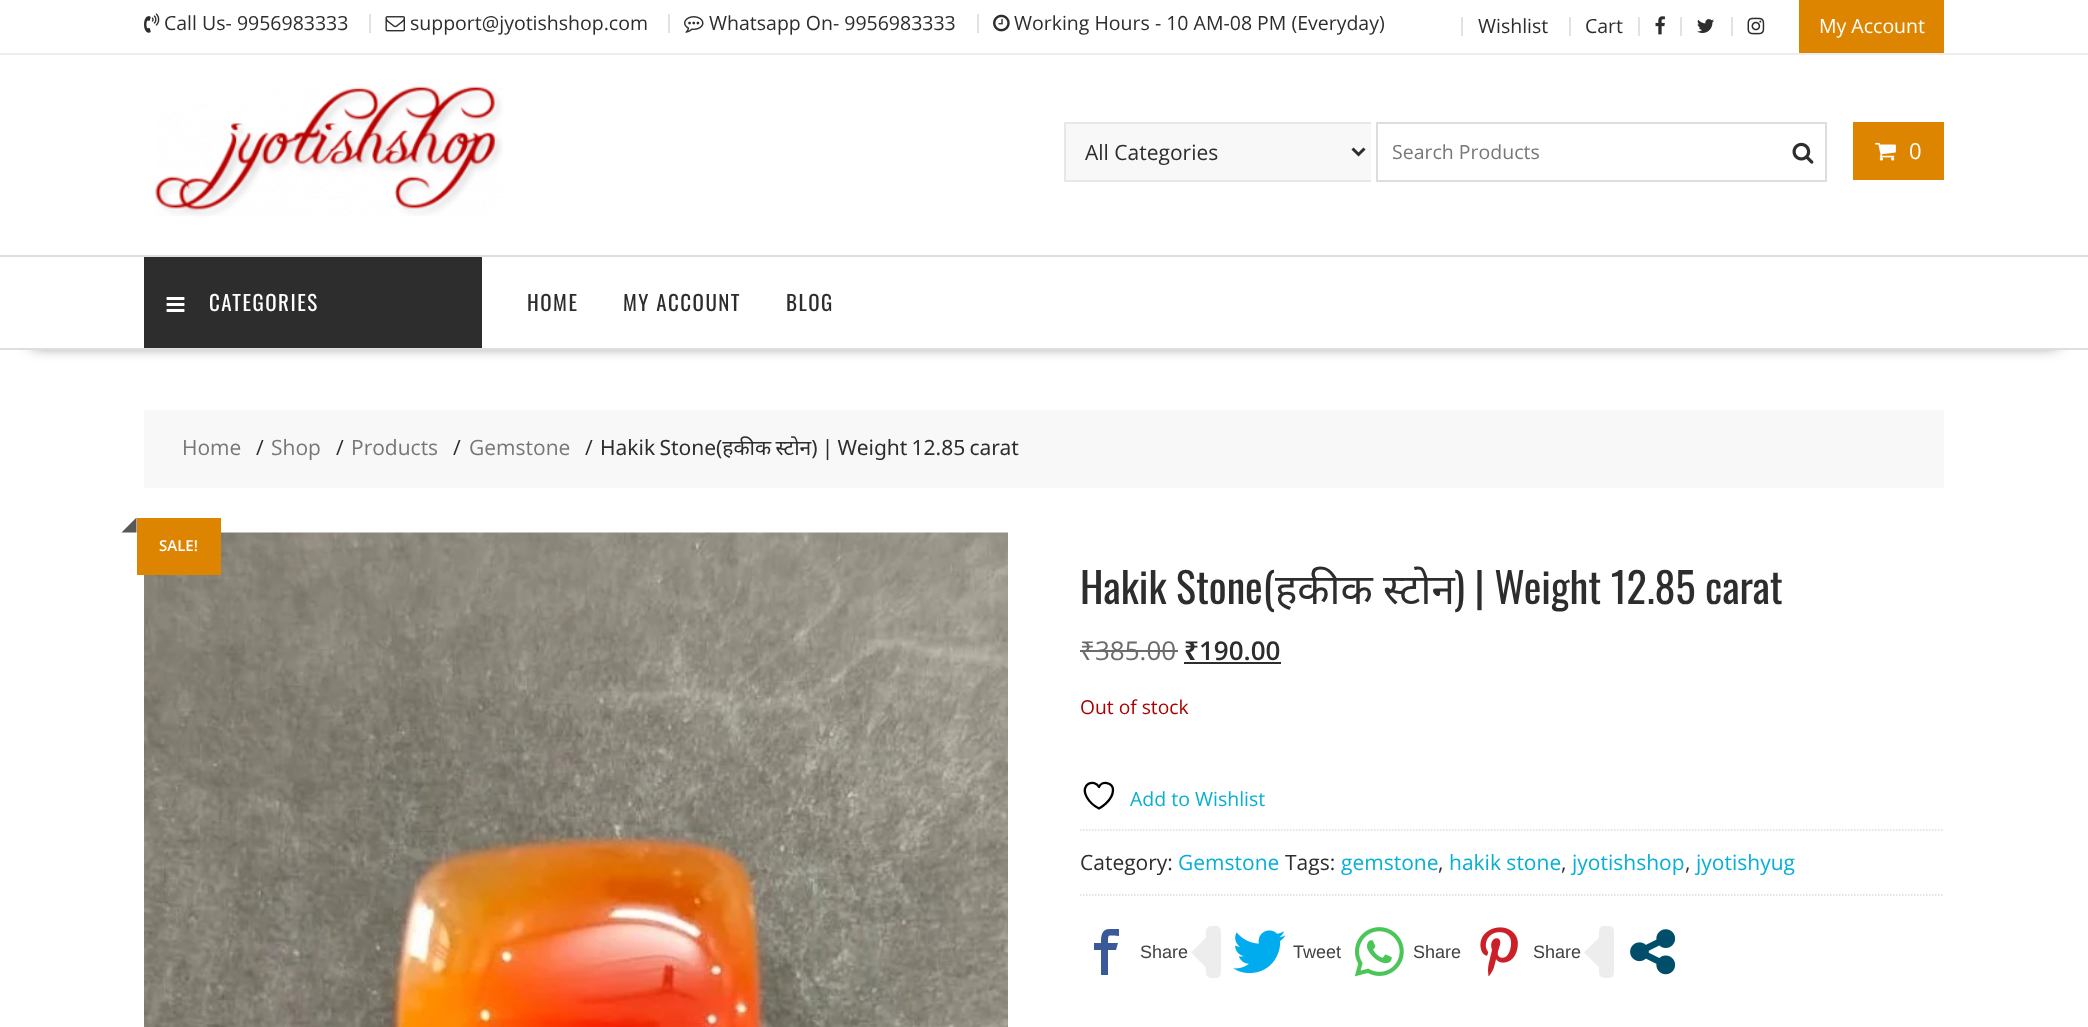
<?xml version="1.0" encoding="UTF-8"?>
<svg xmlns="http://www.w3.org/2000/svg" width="2088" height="1027">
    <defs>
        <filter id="blur1" x="-50%" y="-200%" width="200%" height="500%"><feGaussianBlur stdDeviation="8"/></filter>
    </defs>
    <rect width="100%" height="100%" fill="#FFFFFF"/>
    <rect x="0" y="53" width="2088" height="2" fill="#EEEEEE"/>
    <image x="144" y="13" width="16" height="20" href="img_01.png"/>
    <text x="164" y="30" font-family="Open Sans" font-size="19.5" fill="#2D2D2D">Call Us- 9956983333</text>
    <rect x="369" y="14" width="2" height="19" fill="#E2E2E4"/>
    <image x="385" y="16" width="20" height="16" href="img_02.png"/>
    <text x="410" y="30" font-family="Open Sans" font-size="19.5" fill="#2D2D2D">support@jyotishshop.com</text>
    <rect x="668" y="14" width="2" height="19" fill="#E2E2E4"/>
    <image x="684" y="16" width="20" height="17" href="img_03.png"/>
    <text x="709" y="30" font-family="Open Sans" font-size="19.5" fill="#2D2D2D">Whatsapp On- 9956983333</text>
    <rect x="977" y="14" width="2" height="19" fill="#E2E2E4"/>
    <image x="993" y="14" width="17" height="18" href="img_04.png"/>
    <text x="1014" y="30" font-family="Open Sans" font-size="19.5" fill="#2D2D2D">Working Hours - 10 AM-08 PM (Everyday)</text>
    <rect x="1461" y="17" width="2" height="19" fill="#E2E2E4"/>
    <text x="1478" y="33" font-family="Open Sans" font-size="19.5" fill="#2D2D2D">Wishlist</text>
    <rect x="1569" y="17" width="2" height="19" fill="#E2E2E4"/>
    <text x="1585" y="33" font-family="Open Sans" font-size="19.5" fill="#2D2D2D">Cart</text>
    <rect x="1638" y="17" width="2" height="19" fill="#E2E2E4"/>
    <image x="1655" y="16" width="10" height="19" href="img_05.png"/>
    <rect x="1680" y="17" width="2" height="19" fill="#E2E2E4"/>
    <image x="1697" y="19" width="17" height="14" href="img_06.png"/>
    <rect x="1731" y="17" width="2" height="19" fill="#E2E2E4"/>
    <image x="1747" y="17" width="18" height="18" href="img_07.png"/>
    <rect x="1799" y="0" width="145" height="53" fill="#DD8500"/>
    <text x="1819" y="33" font-family="Open Sans" font-size="19.5" fill="#FFFFFF">My Account</text>
    <image x="155" y="86" width="348" height="130" href="img_08.png"/>
    <rect x="1066" y="124" width="305" height="56" fill="#F8F8F8"/>
    <rect x="1064" y="122" width="307" height="2" fill="#E7E7E7"/>
    <rect x="1064" y="180" width="307" height="2" fill="#E7E7E7"/>
    <rect x="1064" y="122" width="2" height="60" fill="#E7E7E7"/>
    <path d="M 1352.5 148.5 L 1358.5 154.5 L 1364.5 148.5" fill="none" stroke="#2D2D2D" stroke-width="3"/>
    <text x="1085" y="160" font-family="Open Sans" font-size="21" fill="#2D2D2D">All Categories</text>
    <rect x="1377" y="123" width="449" height="58" fill="none" stroke="#DDDDDD" stroke-width="2"/>
    <text x="1392" y="159" font-family="Open Sans" font-size="19.5" fill="#777777">Search Products</text>
    <image x="1792" y="142" width="22" height="22" href="img_09.png"/>
    <rect x="1853" y="122" width="91" height="58" fill="#DD8500"/>
    <image x="1875" y="142" width="21" height="19" href="img_10.png"/>
    <text x="1909" y="159" font-family="Open Sans" font-size="22" fill="#FFFFFF">0</text>
    <rect x="32" y="312" width="2025" height="32" fill="#000000" fill-opacity="0.75" filter="url(#blur1)"/>
    <rect x="14" y="294" width="2061" height="54" fill="#FFFFFF"/>
    <rect x="0" y="255" width="2088" height="2" fill="#DEDEDE"/>
    <rect x="0" y="348" width="2088" height="2" fill="#DEDEDE"/>
    <rect x="144" y="257" width="338" height="91" fill="#2D2D2D"/>
    <image x="166" y="297" width="19" height="15" href="img_11.png"/>
    <text x="209" y="311" font-family="Oswald" font-size="21" letter-spacing="1.5" fill="#FFFFFF">CATEGORIES</text>
    <text x="527" y="311" font-family="Oswald" font-size="21" letter-spacing="1.5" fill="#2D2D2D">HOME</text>
    <text x="623" y="311" font-family="Oswald" font-size="21" letter-spacing="1.5" fill="#2D2D2D">MY ACCOUNT</text>
    <text x="786" y="311" font-family="Oswald" font-size="21" letter-spacing="1.5" fill="#2D2D2D">BLOG</text>
    <rect x="144" y="410" width="1800" height="78" fill="#F8F8F8"/>
    <text x="182" y="455" font-family="Open Sans" font-size="21" fill="#777777">Home</text>
    <text x="256" y="455" font-family="Open Sans" font-size="21" fill="#2D2D2D">/</text>
    <text x="271" y="455" font-family="Open Sans" font-size="21" fill="#777777">Shop</text>
    <text x="336" y="455" font-family="Open Sans" font-size="21" fill="#2D2D2D">/</text>
    <text x="351" y="455" font-family="Open Sans" font-size="21" fill="#777777">Products</text>
    <text x="453" y="455" font-family="Open Sans" font-size="21" fill="#2D2D2D">/</text>
    <text x="469" y="455" font-family="Open Sans" font-size="21" fill="#777777">Gemstone</text>
    <text x="585" y="455" font-family="Open Sans" font-size="21" fill="#2D2D2D">/</text>
    <text x="600" y="455" word-spacing="-1.25" font-family="Noto Sans" font-size="21" fill="#2D2D2D">Hakik Stone(हकीक स्टोन) | Weight 12.85 carat</text>
    <image x="144" y="532" width="864" height="495" href="img_12.png"/>
    <rect x="137" y="518" width="84" height="57" fill="#DD8500"/>
    <path d="M 136.5 517.5 V 532.5 H 121.5 Z" fill="#565955"/>
    <text x="159" y="551" font-family="Open Sans" font-size="15" font-weight="600" fill="#FFFFFF">SALE!</text>
    <text x="1080" y="604" font-family="Oswald" font-size="42" fill="#2D2D2D">Hakik Stone(</text>
    <text x="1275" y="604" font-family="Noto Sans" font-size="42" fill="#2D2D2D">हकीक</text>
    <text x="1383" y="604" font-family="Noto Sans" font-size="42" fill="#2D2D2D">स्टोन</text>
    <text x="1454" y="604" font-family="Oswald" font-size="42" fill="#2D2D2D">) | Weight 12.85 carat</text>
    <text x="1080" y="660" font-family="Noto Sans" font-size="26" fill="#6C6C6C">₹</text>
    <rect x="1080" y="650" width="15" height="2" fill="#6C6C6C"/>
    <text x="1095" y="660" font-family="Open Sans" font-size="26" fill="#6C6C6C">385.00</text>
    <rect x="1095" y="650" width="83" height="2" fill="#6C6C6C"/>
    <text x="1184" y="660" font-family="Noto Sans" font-size="26" font-weight="700" fill="#2D2D2D">₹</text>
    <rect x="1184" y="662" width="97" height="2" fill="#2D2D2D"/>
    <text x="1199" y="660" font-family="Open Sans" font-size="26" font-weight="600" fill="#2D2D2D">190.00</text>
    <text x="1080" y="714" font-family="Open Sans" font-size="19.25" fill="#AA0000">Out of stock</text>
    <path d="M 1113 790 C 1113 782 1101.5 780.5 1099 787 C 1095 778.5 1079 783.5 1087 797.5 C 1089.5 802 1094 806 1099 808.5 C 1099 808.5 1113 801 1113 790 Z" fill="none" stroke="#000000" stroke-width="2.3" stroke-linecap="round" stroke-linejoin="round"/>
    <text x="1130" y="806" font-family="Open Sans" font-size="19.5" fill="#07AFD4">Add to Wishlist</text>
    <path d="M 1080 830 H 1944" fill="none" stroke="#DDDDDD" stroke-width="1.5" stroke-dasharray="1.5 1.5"/>
    <path d="M 1080 895 H 1944" fill="none" stroke="#DDDDDD" stroke-width="1.5" stroke-dasharray="1.5 1.5"/>
    <text x="1080" y="870" font-family="Open Sans" font-size="21" fill="#2D2D2D">Category:</text>
    <text x="1178" y="870" font-family="Open Sans" font-size="21" fill="#07AFD4">Gemstone</text>
    <text x="1285" y="870" font-family="Open Sans" font-size="21" fill="#2D2D2D">Tags:</text>
    <text x="1341" y="870" font-family="Open Sans" font-size="21" fill="#07AFD4">gemstone</text>
    <text x="1438" y="870" font-family="Open Sans" font-size="21" fill="#2D2D2D">,</text>
    <text x="1449" y="870" font-family="Open Sans" font-size="21" fill="#07AFD4">hakik stone</text>
    <text x="1561" y="870" font-family="Open Sans" font-size="21" fill="#2D2D2D">,</text>
    <text x="1572" y="870" font-family="Open Sans" font-size="21" fill="#07AFD4">jyotishshop</text>
    <text x="1685" y="870" font-family="Open Sans" font-size="21" fill="#2D2D2D">,</text>
    <text x="1696" y="870" font-family="Open Sans" font-size="21" fill="#07AFD4">jyotishyug</text>
    <path d="M 1110 929 C 1101 929 1101 937 1101 943 H 1094 V 950 H 1101 V 975 H 1108 V 950 H 1116 L 1118 943 H 1108 C 1108 933 1108 936 1119 936 V 929 Z" fill="#3B5998"/>
    <text x="1140" y="958" font-family="Liberation Sans" font-size="18" fill="#424242">Share</text>
    <rect x="1206" y="926" width="15" height="52" rx="5" fill="#EDEDED"/>
    <path d="M 1206 937.5 V 967.5 L 1191 952.5 Z" fill="#EDEDED"/>
    <image x="1233" y="930" width="53" height="44" href="img_13.png"/>
    <text x="1293" y="958" font-family="Liberation Sans" font-size="18" fill="#424242">Tweet</text>
    <image x="1354" y="927" width="50" height="50" href="img_14.png"/>
    <text x="1413" y="958" font-family="Liberation Sans" font-size="18" fill="#424242">Share</text>
    <image x="1480" y="927" width="38" height="50" href="img_15.png"/>
    <text x="1533" y="958" font-family="Liberation Sans" font-size="18" fill="#424242">Share</text>
    <rect x="1599" y="926" width="15" height="52" rx="5" fill="#EDEDED"/>
    <path d="M 1599 937.5 V 967.5 L 1584 952.5 Z" fill="#EDEDED"/>
    <image x="1630" y="929" width="46" height="46" href="img_16.png"/>
</svg>
